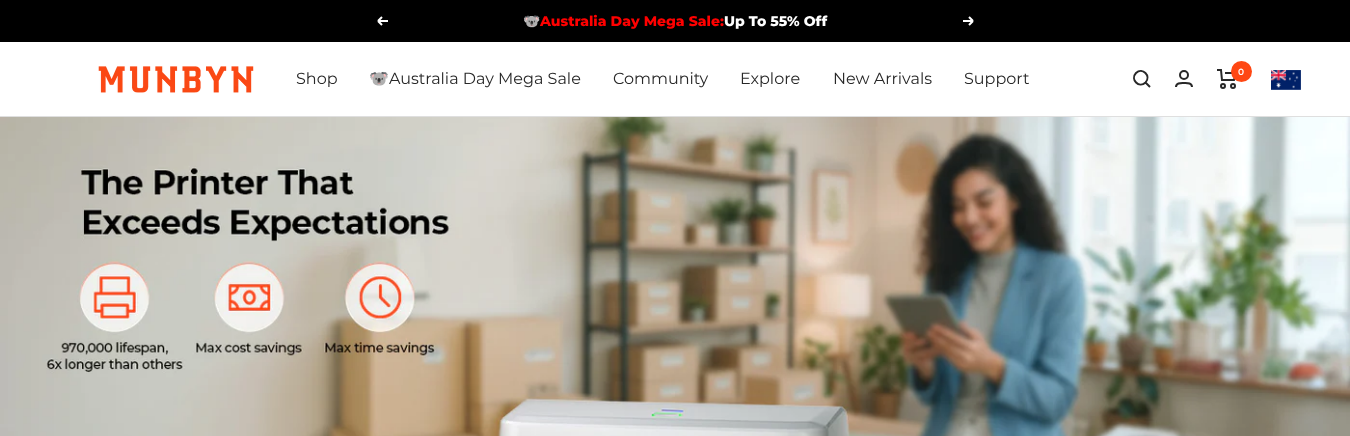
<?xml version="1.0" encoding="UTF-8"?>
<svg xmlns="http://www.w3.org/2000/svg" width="1350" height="436">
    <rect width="100%" height="100%" fill="#FFFFFF"/>
    <rect x="0" y="0" width="1350" height="42" fill="#000000"/>
    <path d="M 388 21 H 378 M 378 21 L 382 25 M 378 21 L 382 17" fill="none" stroke="#FFFFFF" stroke-width="2"/>
    <text x="523" y="26" font-family="Noto Color Emoji" font-size="14" font-weight="700" fill="#FF0000">🐨</text>
    <text x="540" y="26" font-family="Montserrat" font-size="14" font-weight="800" fill="#FF0000">Australia Day Mega Sale:</text>
    <text x="724" y="26" font-family="Montserrat" font-size="14" font-weight="800" fill="#FFFFFF">Up To 55% Off</text>
    <path d="M 963 21 H 973 M 973 21 L 969 25 M 973 21 L 969 17" fill="none" stroke="#FFFFFF" stroke-width="2"/>
    <rect x="0" y="116" width="1350" height="1" fill="#DFDFDF"/>
    <image x="98" y="66" width="156" height="27" href="img_01.png"/>
    <text x="296" y="84" font-family="Montserrat" font-size="16" fill="#282828">Shop</text>
    <text x="369" y="84" font-family="Noto Color Emoji" font-size="16" fill="#282828">🐨</text>
    <text x="389" y="84" font-family="Montserrat" font-size="16" fill="#282828">Australia Day Mega Sale</text>
    <text x="613" y="84" font-family="Montserrat" font-size="16" fill="#282828">Community</text>
    <text x="740" y="84" font-family="Montserrat" font-size="16" fill="#282828">Explore</text>
    <text x="833" y="84" font-family="Montserrat" font-size="16" fill="#282828">New Arrivals</text>
    <text x="964" y="84" font-family="Montserrat" font-size="16" fill="#282828">Support</text>
    <path d="M 1145.5 82.5 C 1151.5 76 1142.5 67 1136 73 C 1130 79.5 1139 88.5 1145.5 82.5 Z M 1145.5 82.5 L 1150 87" fill="none" stroke="#282828" stroke-width="2"/>
    <circle cx="1184" cy="75" r="4" fill="none" stroke="#282828" stroke-width="2"/>
    <path d="M 1176 87 C 1176 82.5 1181 83 1184 83 C 1187 83 1192 82.5 1192 87 M 1217 70 H 1221 L 1222 80 H 1234 L 1236 73 H 1225" fill="none" stroke="#282828" stroke-width="2"/>
    <circle cx="1241.5" cy="71.5" r="10.5" fill="#FF4713"/>
    <text x="1238" y="75" font-family="Montserrat" font-size="9" font-weight="600" fill="#FFFFFF">0</text>
    <circle cx="1223" cy="86" r="2" fill="none" stroke="#282828" stroke-width="2"/>
    <circle cx="1233" cy="86" r="2" fill="none" stroke="#282828" stroke-width="2"/>
    <image x="1271" y="70" width="30" height="20" href="img_02.png"/>
    <image x="0" y="117" width="1350" height="319" href="img_03.png"/>
</svg>
